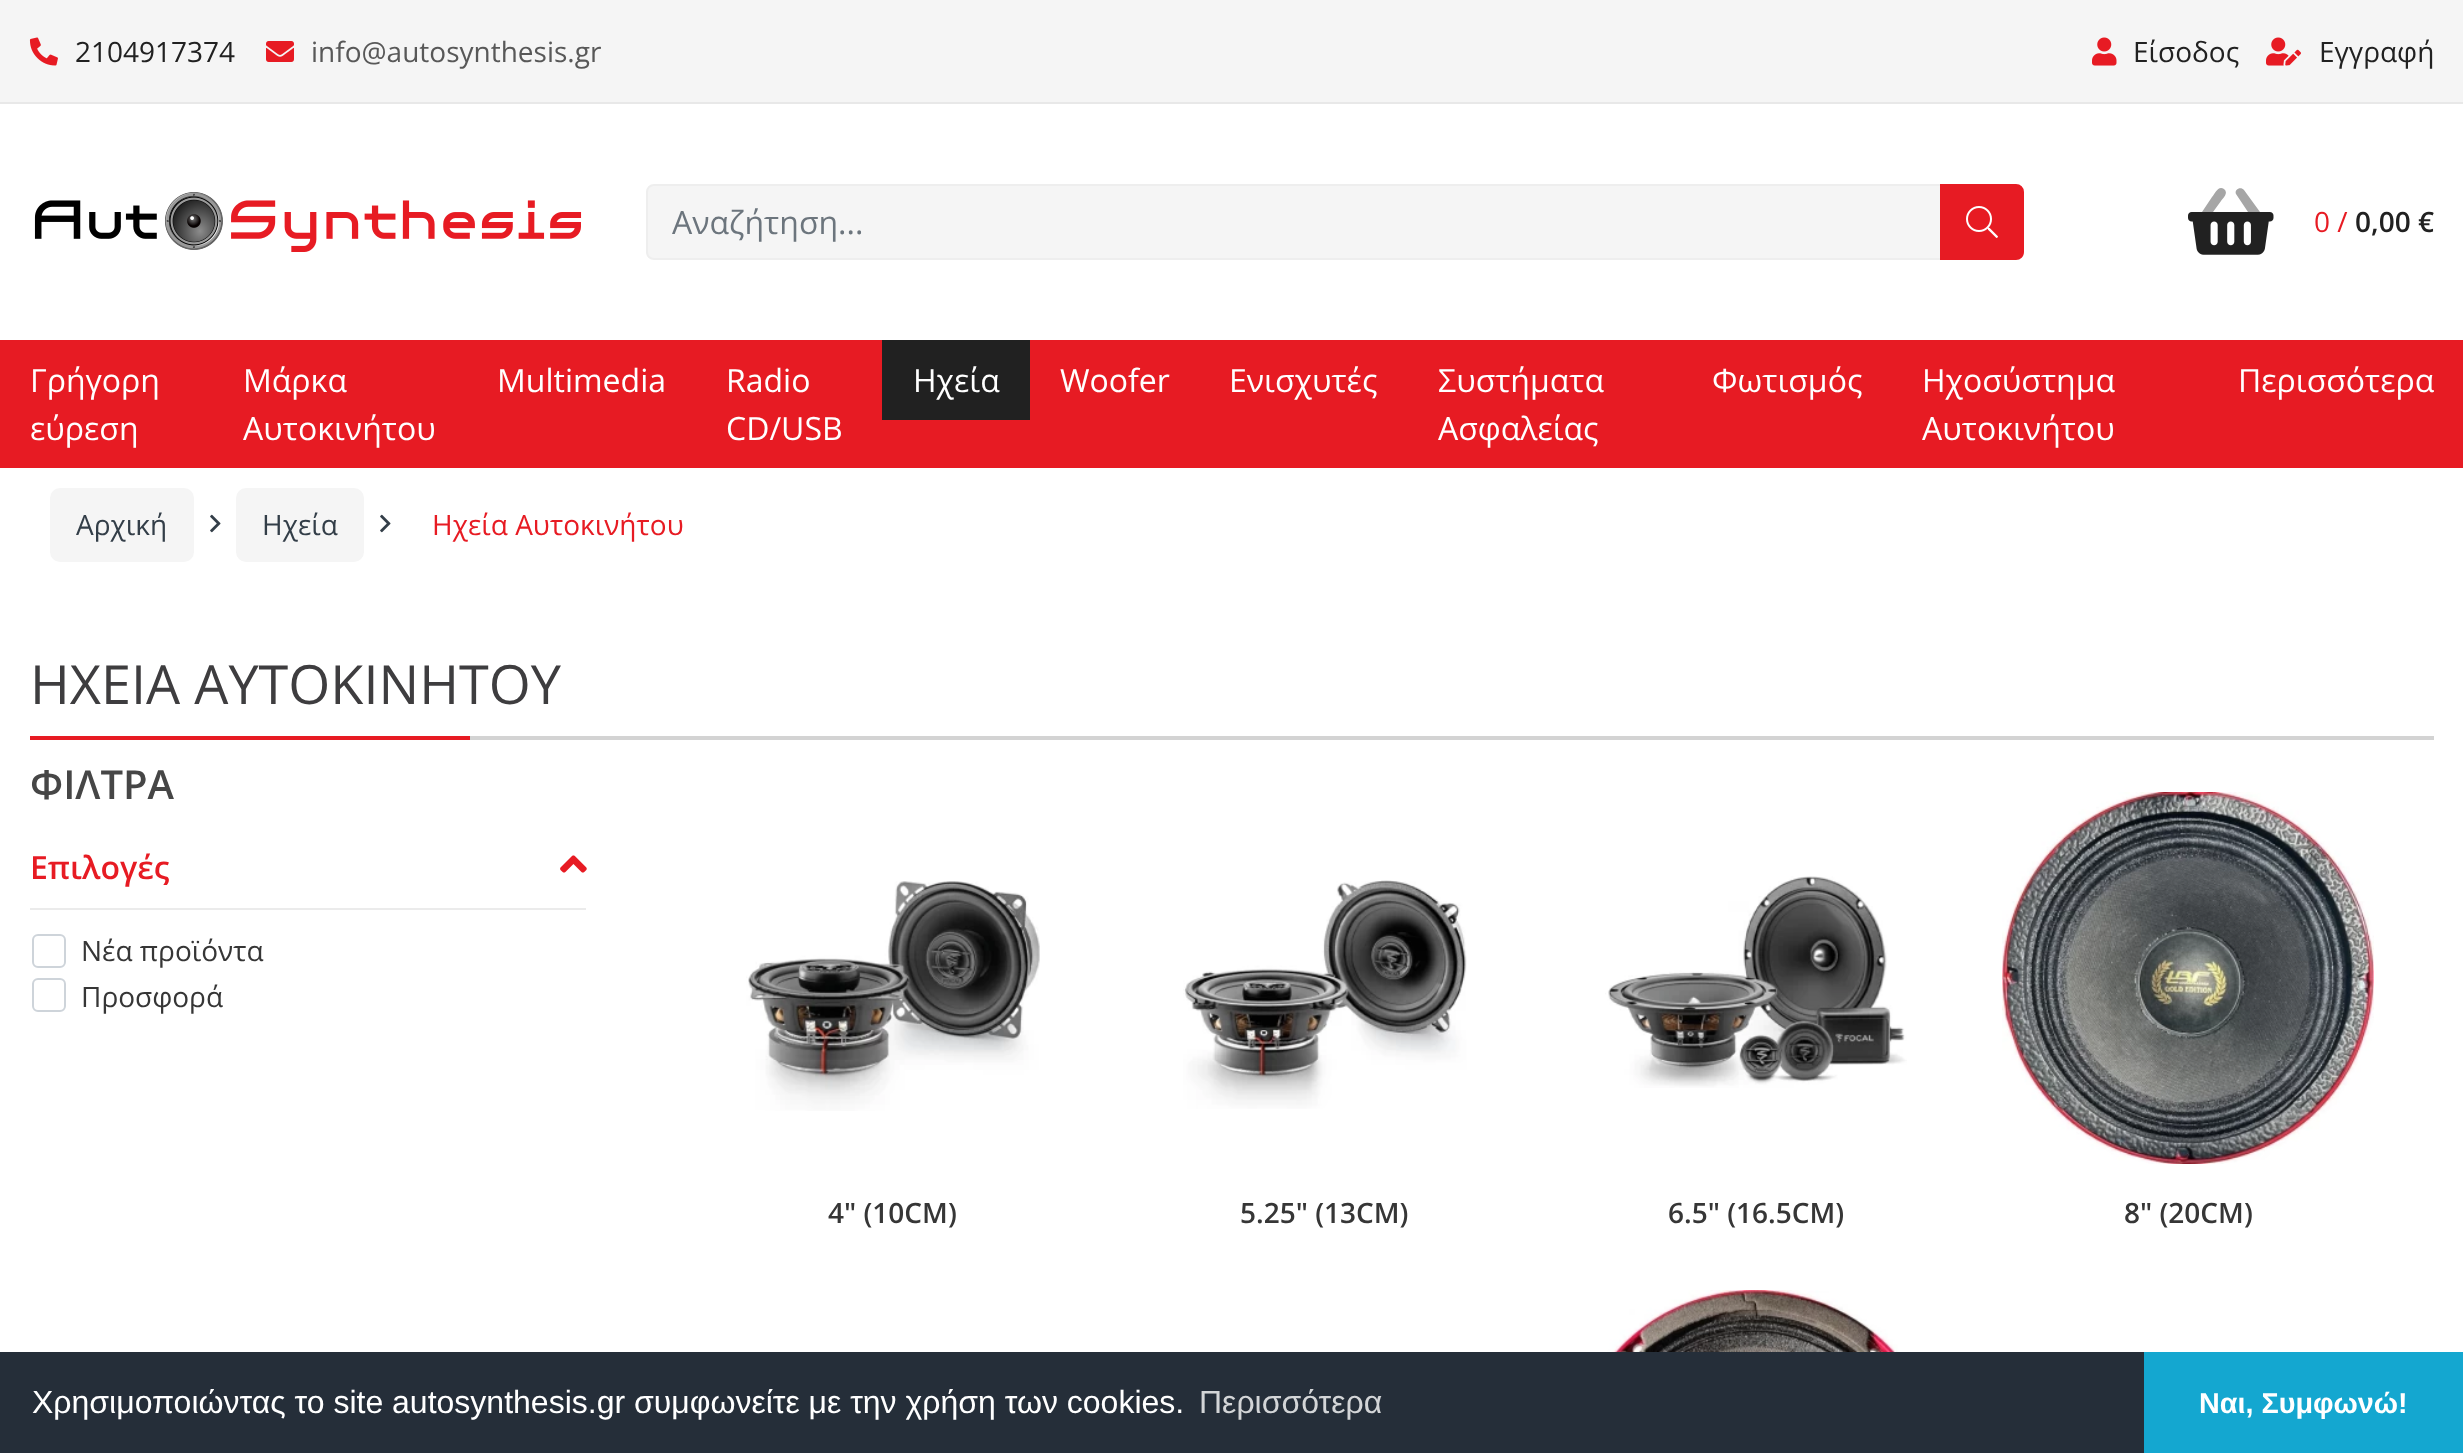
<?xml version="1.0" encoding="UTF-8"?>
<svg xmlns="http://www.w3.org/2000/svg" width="2463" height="1453">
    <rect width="100%" height="100%" fill="#FFFFFF"/>
    <rect x="0" y="0" width="2463" height="102" fill="#F5F5F5"/>
    <rect x="0" y="102" width="2463" height="2" fill="#E8E8E8"/>
    <image x="29" y="37" width="29" height="29" href="img_01.png"/>
    <text x="75" y="62" font-family="Open Sans" font-size="28" fill="#212121">2104917374</text>
    <image x="266" y="41" width="28" height="21" href="img_02.png"/>
    <text x="311" y="62" font-family="Open Sans" font-size="28" fill="#585858">info@autosynthesis.gr</text>
    <image x="2092" y="37" width="25" height="29" href="img_03.png"/>
    <text x="2133" y="62" font-family="Open Sans" font-size="28" fill="#212121">Είσοδος</text>
    <image x="2266" y="37" width="35" height="29" href="img_04.png"/>
    <text x="2319" y="62" font-family="Open Sans" font-size="28" fill="#212121">Εγγραφή</text>
    <image x="34" y="192" width="548" height="60" href="img_05.png"/>
    <path d="M 654 185 H 1941 V 259 H 654 C 650 259 647 256 647 252 V 192 C 647 188 650 185 654 185 Z" fill="#F5F5F5" stroke="#EEEEEE" stroke-width="2"/>
    <text x="672" y="234" font-family="Open Sans" font-size="32" fill="#6C757D">Αναζήτηση...</text>
    <path d="M 1941 185 H 2016 C 2020 185 2023 188 2023 192 V 252 C 2023 256 2020 259 2016 259 H 1941 Z" fill="#E71B23" stroke="#E71B23" stroke-width="2"/>
    <image x="1966" y="206" width="32" height="32" href="img_06.png"/>
    <path d="M 2224 189 C 2229 193 2223 198 2221 201 L 2213 212 H 2202 L 2212 197 C 2215 194 2218 185 2224 189 Z M 2244 190 L 2260 212 H 2248 L 2236 194 C 2234 189 2241 186 2244 190 Z" fill="#A6A6A6"/>
    <image x="2188" y="212" width="86" height="43" href="img_07.png"/>
    <text x="2314" y="232" font-family="Open Sans" font-size="28" fill="#E71B23">0 /</text>
    <text x="2355" y="232" font-family="Open Sans" font-size="28" font-weight="600" fill="#212121">0,00 €</text>
    <rect x="0" y="340" width="2463" height="128" fill="#E71B23"/>
    <text font-family="Open Sans" font-size="32" fill="#FFFFFF">
        <tspan x="30" y="392">Γρήγορη</tspan>
        <tspan x="30" y="440">εύρεση</tspan>
    </text>
    <text font-family="Open Sans" font-size="32" fill="#FFFFFF">
        <tspan x="243" y="392">Μάρκα</tspan>
        <tspan x="243" y="440">Αυτοκινήτου</tspan>
    </text>
    <text x="497" y="392" font-family="Open Sans" font-size="32" fill="#FFFFFF">Multimedia</text>
    <text font-family="Open Sans" font-size="32" fill="#FFFFFF">
        <tspan x="726" y="392">Radio</tspan>
        <tspan x="726" y="440">CD/USB</tspan>
    </text>
    <rect x="882" y="340" width="148" height="80" fill="#212121"/>
    <text x="913" y="392" font-family="Open Sans" font-size="32" fill="#FFFFFF">Ηχεία</text>
    <text x="1060" y="392" font-family="Open Sans" font-size="32" fill="#FFFFFF">Woofer</text>
    <text x="1229" y="392" font-family="Open Sans" font-size="32" fill="#FFFFFF">Ενισχυτές</text>
    <text font-family="Open Sans" font-size="32" fill="#FFFFFF">
        <tspan x="1438" y="392">Συστήματα</tspan>
        <tspan x="1438" y="440">Ασφαλείας</tspan>
    </text>
    <text x="1712" y="392" font-family="Open Sans" font-size="32" fill="#FFFFFF">Φωτισμός</text>
    <text font-family="Open Sans" font-size="32" fill="#FFFFFF">
        <tspan x="1922" y="392">Ηχοσύστημα</tspan>
        <tspan x="1922" y="440">Αυτοκινήτου</tspan>
    </text>
    <text x="2238" y="392" font-family="Open Sans" font-size="32" fill="#FFFFFF">Περισσότερα</text>
    <rect x="50" y="488" width="144" height="74" rx="10" fill="#F5F5F5"/>
    <text x="76" y="535" font-family="Open Sans" font-size="28" fill="#333E48">Αρχική</text>
    <image x="210" y="514" width="11" height="19" href="img_08.png"/>
    <rect x="236" y="488" width="128" height="74" rx="10" fill="#F5F5F5"/>
    <text x="262" y="535" font-family="Open Sans" font-size="28" fill="#333E48">Ηχεία</text>
    <image x="380" y="514" width="11" height="19" href="img_08.png"/>
    <text x="432" y="535" font-family="Open Sans" font-size="28" fill="#E71B23">Ηχεία Αυτοκινήτου</text>
    <rect x="470" y="736" width="1964" height="4" fill="#D3D3D3"/>
    <text x="30" y="704" font-family="Open Sans" font-size="54" fill="#3E3D3F">ΗΧΕΙΑ ΑΥΤΟΚΙΝΗΤΟΥ</text>
    <rect x="30" y="736" width="440" height="4" fill="#E71B23"/>
    <text x="30" y="799" font-family="Open Sans" font-size="40" font-weight="600" fill="#464646">ΦΙΛΤΡΑ</text>
    <rect x="30" y="908" width="556" height="2" fill="#EBEBEB"/>
    <text x="30" y="879" font-family="Open Sans" font-size="32" font-weight="600" fill="#E71B23">Επιλογές</text>
    <image x="560" y="855" width="27" height="18" href="img_09.png"/>
    <rect x="33" y="935" width="32" height="32" rx="5" fill="none" stroke="#CED4DA" stroke-width="2"/>
    <text x="81" y="961" font-family="Open Sans" font-size="28" fill="#363636">Νέα προϊόντα</text>
    <rect x="33" y="979" width="32" height="32" rx="5" fill="none" stroke="#CED4DA" stroke-width="2"/>
    <text x="81" y="1007" font-family="Open Sans" font-size="28" fill="#363636">Προσφορά</text>
    <image x="746" y="881" width="294" height="230" href="img_10.png"/>
    <text x="828" y="1223" font-family="Open Sans" font-size="28" font-weight="600" fill="#363636">4" (10CM)</text>
    <image x="1183" y="880" width="284" height="229" href="img_11.png"/>
    <text x="1240" y="1223" font-family="Open Sans" font-size="28" font-weight="600" fill="#363636">5.25" (13CM)</text>
    <image x="1605" y="876" width="302" height="212" href="img_12.png"/>
    <text x="1668" y="1223" font-family="Open Sans" font-size="28" font-weight="600" fill="#363636">6.5" (16.5CM)</text>
    <image x="2002" y="792" width="372" height="372" href="img_13.png"/>
    <text x="2124" y="1223" font-family="Open Sans" font-size="28" font-weight="600" fill="#363636">8" (20CM)</text>
    <image x="1570" y="1290" width="372" height="62" href="img_14.png"/>
    <rect x="0" y="1352" width="2144" height="101" fill="#252E39"/>
    <text x="32" y="1413" font-family="Liberation Sans" font-size="32" fill="#FFFFFF">Χρησιμοποιώντας το site autosynthesis.gr συμφωνείτε με την χρήση των cookies.</text>
    <text x="1199" y="1413" font-family="Liberation Sans" font-size="32" fill="#D3D5D7">Περισσότερα</text>
    <rect x="2144" y="1352" width="319" height="101" fill="#14A7D0"/>
    <text x="2199" y="1413" font-family="Liberation Sans" font-size="28.75" font-weight="700" fill="#FFFFFF">Ναι, Συμφωνώ!</text>
</svg>
